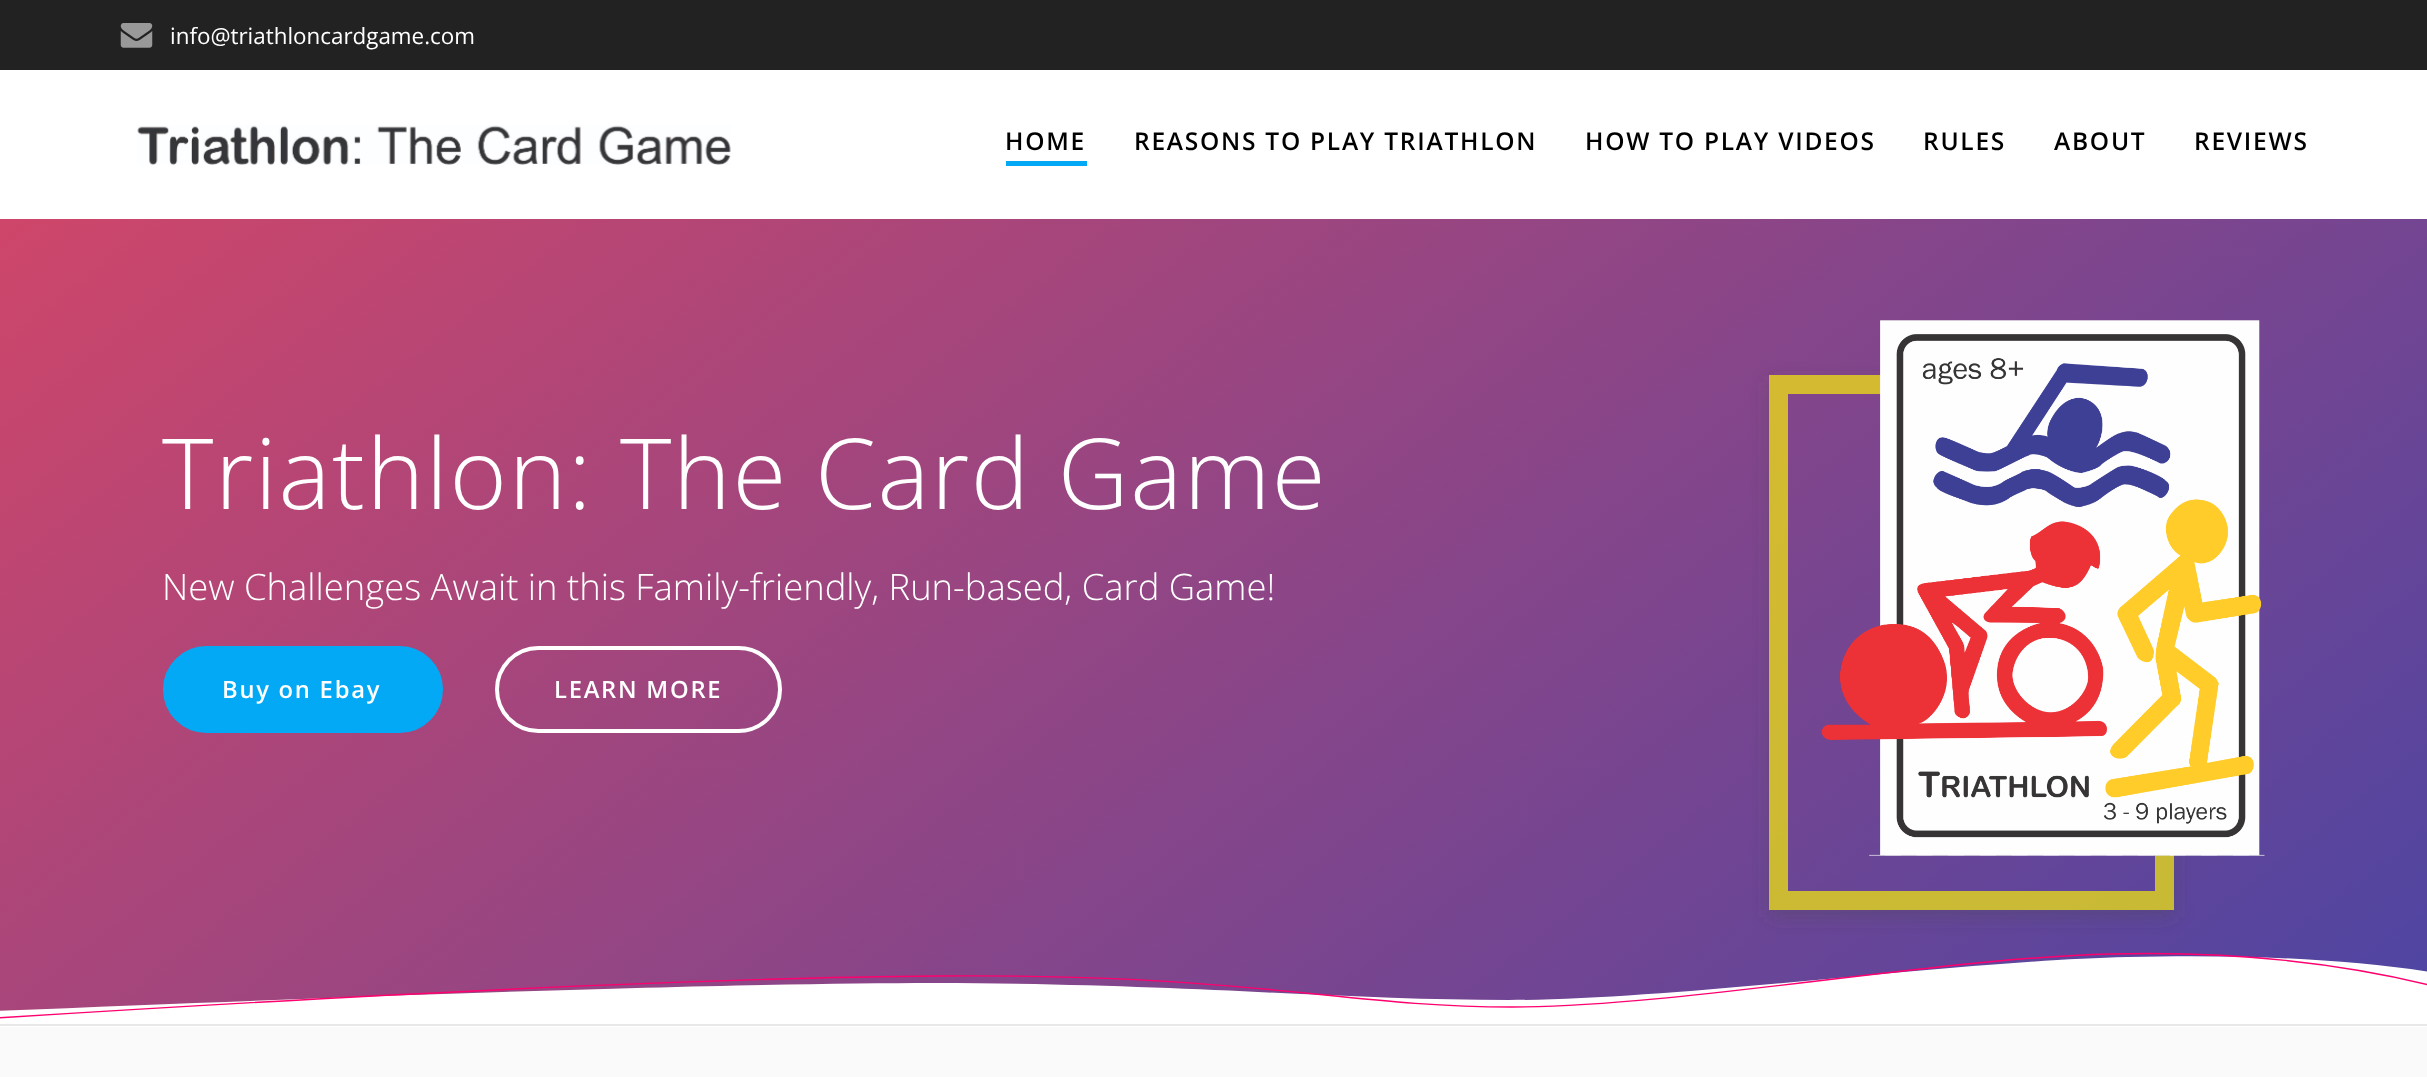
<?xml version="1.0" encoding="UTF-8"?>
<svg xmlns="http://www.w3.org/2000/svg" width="2427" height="1077">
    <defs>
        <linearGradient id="g1" gradientUnits="userSpaceOnUse" x1="505" y1="-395" x2="1922" y2="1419"><stop offset="0" stop-color="#D94665"/><stop offset="1" stop-color="#4D45A3"/></linearGradient>
        <clipPath id="clip1"><path d="M 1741 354 H 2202 V 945 H 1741 Z M 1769 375 H 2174 V 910 H 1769 Z" clip-rule="evenodd"/></clipPath>
        <filter id="blur1" x="-50%" y="-200%" width="200%" height="500%"><feGaussianBlur stdDeviation="9"/></filter>
        <clipPath id="clip2"><rect x="0" y="950" width="2427" height="77"/></clipPath>
    </defs>
    <rect width="100%" height="100%" fill="#FAFAFA"/>
    <rect x="0" y="0" width="2427" height="70" fill="#222222"/>
    <image x="120" y="23" width="33" height="25" href="img_01.png"/>
    <text x="170" y="44" font-family="Open Sans" font-size="22.4" fill="#FFFFFF">info@triathloncardgame.com</text>
    <rect x="0" y="70" width="2427" height="149" fill="#FFFFFF"/>
    <image x="137" y="125" width="594" height="40" href="img_02.png"/>
    <rect x="1006" y="161" width="81" height="5" fill="#03A9F4"/>
    <text x="1005" y="150" font-family="Open Sans" font-size="24.5" font-weight="600" letter-spacing="1.75" fill="#000000">HOME</text>
    <text x="1134" y="150" font-family="Open Sans" font-size="24.5" font-weight="600" letter-spacing="1.75" fill="#000000">REASONS TO PLAY TRIATHLON</text>
    <text x="1585" y="150" font-family="Open Sans" font-size="24.5" font-weight="600" letter-spacing="1.75" fill="#000000">HOW TO PLAY VIDEOS</text>
    <text x="1923" y="150" font-family="Open Sans" font-size="24.5" font-weight="600" letter-spacing="1.75" fill="#000000">RULES</text>
    <text x="2054" y="150" font-family="Open Sans" font-size="24.5" font-weight="600" letter-spacing="1.75" fill="#000000">ABOUT</text>
    <text x="2194" y="150" font-family="Open Sans" font-size="24.5" font-weight="600" letter-spacing="1.75" fill="#000000">REVIEWS</text>
    <rect x="0" y="219" width="2427" height="792" fill="url(#g1)"/>
    <text x="162" y="509" font-family="Open Sans" font-size="98" font-weight="300" letter-spacing="1.6" fill="#FFFFFF">Triathlon: The Card Game</text>
    <text x="162" y="600" font-family="Open Sans" font-size="36.4" font-weight="300" fill="#FFFFFF">New Challenges Await in this Family-friendly, Run-based, Card Game!</text>
    <rect x="165" y="648" width="276" height="83" rx="41.5" fill="#03A9F4" stroke="#03A9F4" stroke-width="4"/>
    <text x="222" y="698" font-family="Open Sans" font-size="23.75" font-weight="600" letter-spacing="1.75" fill="#FFFFFF">Buy on Ebay</text>
    <rect x="497" y="648" width="283" height="83" rx="41.5" fill="none" stroke="#FFFFFF" stroke-width="4"/>
    <text x="554" y="698" font-family="Open Sans" font-size="23.75" font-weight="600" letter-spacing="1.75" fill="#FFFFFF">LEARN MORE</text>
    <g clip-path="url(#clip1)">
        <rect x="1769" y="382" width="405" height="535" fill="#4A4A4A" fill-opacity="0.3" filter="url(#blur1)"/>
    </g>
    <rect x="1778.5" y="384.5" width="386" height="516" fill="none" stroke="#F3E80E" stroke-opacity="0.72" stroke-width="19"/>
    <image x="1821" y="320" width="444" height="536" href="img_03.png"/>
    <g clip-path="url(#clip2)">
        <path d="M -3 1011 C 450 992 762 983 934 983 C 1193 984 1341 1000 1509 1000 C 1676 1000 1954 961 2128 957 C 2243 954 2345 959 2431 972 V 1027 L -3 1028 Z" fill="#FFFFFF"/>
    </g>
    <path d="M -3 1018 C 414 991.5 727.5 977.5 938.5 976 C 1254 973.5 1344 1007 1511.5 1007 C 1679 1007 1937.5 958 2111 954 C 2227 951 2333.5 961.5 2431.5 985.5" fill="none" stroke="#FF006E" stroke-width="1.4"/>
    <rect x="0" y="1024" width="2427" height="2" fill="#E8E8E8"/>
</svg>
